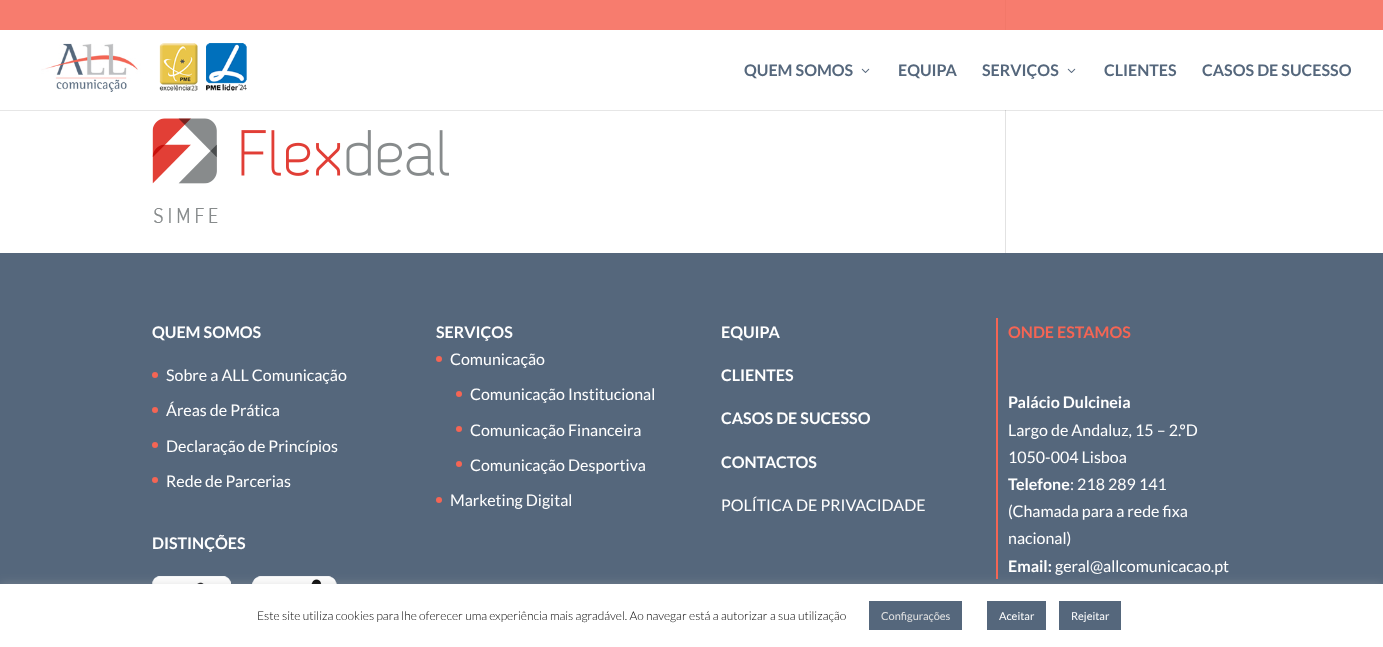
<?xml version="1.0" encoding="UTF-8"?>
<svg xmlns="http://www.w3.org/2000/svg" width="1383" height="647">
    <defs>
        <filter id="blur1" x="-50%" y="-200%" width="200%" height="500%"><feGaussianBlur stdDeviation="5"/></filter>
    </defs>
    <rect width="100%" height="100%" fill="#FFFFFF"/>
    <rect x="0" y="0" width="1383" height="30" fill="#F77C6E"/>
    <rect x="0" y="110" width="1383" height="1" fill="#E6E6E6"/>
    <image x="41" y="43" width="206" height="49" href="img_01.png"/>
    <text x="744" y="76" font-family="Lato" font-size="16" font-weight="700" fill="#55677C">QUEM SOMOS</text>
    <image x="861" y="68" width="9" height="5" href="img_02.png"/>
    <text x="898" y="76" font-family="Lato" font-size="16" font-weight="700" fill="#55677C">EQUIPA</text>
    <text x="982" y="76" font-family="Lato" font-size="16" font-weight="700" fill="#55677C">SERVIÇOS</text>
    <image x="1067" y="68" width="9" height="5" href="img_02.png"/>
    <text x="1104" y="76" font-family="Lato" font-size="16" font-weight="700" fill="#55677C">CLIENTES</text>
    <text x="1202" y="76" font-family="Lato" font-size="16" font-weight="700" fill="#55677C">CASOS DE SUCESSO</text>
    <image x="152" y="118" width="297" height="105" href="img_03.png"/>
    <rect x="1005" y="111" width="1" height="142" fill="#E2E2E2"/>
    <rect x="1005" y="0" width="1" height="30" fill="#F27869"/>
    <rect x="1005" y="110" width="1" height="1" fill="#CBCBCB"/>
    <rect x="0" y="253" width="1383" height="331" fill="#55677C"/>
    <text x="152" y="338" font-family="Lato" font-size="16" font-weight="700" fill="#FFFFFF">QUEM SOMOS</text>
    <circle cx="155" cy="375" r="3" fill="#F56554"/>
    <text x="166" y="381" font-family="Lato" font-size="16" fill="#FFFFFF">Sobre a ALL Comunicação</text>
    <circle cx="155" cy="410" r="3" fill="#F56554"/>
    <text x="166" y="416" font-family="Lato" font-size="16" fill="#FFFFFF">Áreas de Prática</text>
    <circle cx="155" cy="445" r="3" fill="#F56554"/>
    <text x="166" y="452" font-family="Lato" font-size="16" fill="#FFFFFF">Declaração de Princípios</text>
    <circle cx="155" cy="480" r="3" fill="#F56554"/>
    <text x="166" y="487" font-family="Lato" font-size="16" fill="#FFFFFF">Rede de Parcerias</text>
    <text x="152" y="549" font-family="Lato" font-size="16" font-weight="700" fill="#FFFFFF">DISTINÇÕES</text>
    <image x="152" y="576" width="185" height="8" href="img_04.png"/>
    <text x="436" y="338" font-family="Lato" font-size="16" font-weight="700" fill="#FFFFFF">SERVIÇOS</text>
    <circle cx="439" cy="359" r="3" fill="#F56554"/>
    <text x="450" y="365" font-family="Lato" font-size="16" fill="#FFFFFF">Comunicação</text>
    <circle cx="459" cy="394" r="3" fill="#F56554"/>
    <text x="470" y="400" font-family="Lato" font-size="16" fill="#FFFFFF">Comunicação Institucional</text>
    <circle cx="459" cy="429" r="3" fill="#F56554"/>
    <text x="470" y="436" font-family="Lato" font-size="16" fill="#FFFFFF">Comunicação Financeira</text>
    <circle cx="459" cy="464" r="3" fill="#F56554"/>
    <text x="470" y="471" font-family="Lato" font-size="16" fill="#FFFFFF">Comunicação Desportiva</text>
    <circle cx="439" cy="500" r="3" fill="#F56554"/>
    <text x="450" y="506" font-family="Lato" font-size="16" fill="#FFFFFF">Marketing Digital</text>
    <text x="721" y="338" font-family="Lato" font-size="16" font-weight="700" fill="#FFFFFF">EQUIPA</text>
    <text x="721" y="381" font-family="Lato" font-size="16" font-weight="700" fill="#FFFFFF">CLIENTES</text>
    <text x="721" y="424" font-family="Lato" font-size="16" font-weight="700" fill="#FFFFFF">CASOS DE SUCESSO</text>
    <text x="721" y="468" font-family="Lato" font-size="16" font-weight="700" fill="#FFFFFF">CONTACTOS</text>
    <text x="721" y="511" font-family="Lato" font-size="16" fill="#FFFFFF">POLÍTICA DE PRIVACIDADE</text>
    <rect x="996" y="318" width="2" height="261" fill="#F56554"/>
    <text x="1008" y="338" font-family="Lato" font-size="16" font-weight="700" fill="#F56554">ONDE ESTAMOS</text>
    <text x="1008" y="408" font-family="Lato" font-size="16" font-weight="700" fill="#FFFFFF">Palácio Dulcineia</text>
    <text font-family="Lato" font-size="16" fill="#FFFFFF">
        <tspan x="1008" y="436">Largo de Andaluz, 15 – 2.ºD</tspan>
        <tspan x="1008" y="463">1050-004 Lisboa</tspan>
    </text>
    <text x="1008" y="490" font-family="Lato" font-size="16" font-weight="700" fill="#FFFFFF">Telefone</text>
    <text x="1070" y="490" font-family="Lato" font-size="16" fill="#FFFFFF">: 218 289 141</text>
    <text font-family="Lato" font-size="16" fill="#FFFFFF">
        <tspan x="1008" y="517">(Chamada para a rede fixa</tspan>
        <tspan x="1008" y="544">nacional)</tspan>
    </text>
    <text x="1008" y="572" font-family="Lato" font-size="16" font-weight="700" fill="#FFFFFF">Email:</text>
    <text x="1055" y="572" font-family="Lato" font-size="16" fill="#FFFFFF">geral@allcomunicacao.pt</text>
    <rect x="0" y="583" width="1383" height="63" fill="#ACABAB" fill-opacity="0.3" filter="url(#blur1)"/>
    <rect x="0" y="584" width="1383" height="63" fill="#FFFFFF"/>
    <text x="257" y="620" font-family="Lato" font-size="12" font-weight="300" fill="#000000">Este site utiliza cookies para lhe oferecer uma experiência mais agradável. Ao navegar está a autorizar a sua utilização</text>
    <rect x="869" y="601" width="93" height="29" fill="#55677C"/>
    <text x="881" y="620" font-family="Lato" font-size="11" fill="#E2E2E2">Configurações</text>
    <rect x="987" y="601" width="59" height="29" fill="#55677C"/>
    <text x="999" y="620" font-family="Lato" font-size="11" fill="#FFFFFF">Aceitar</text>
    <rect x="1059" y="601" width="62" height="29" fill="#55677C"/>
    <text x="1071" y="620" font-family="Lato" font-size="11" fill="#FFFFFF">Rejeitar</text>
</svg>
